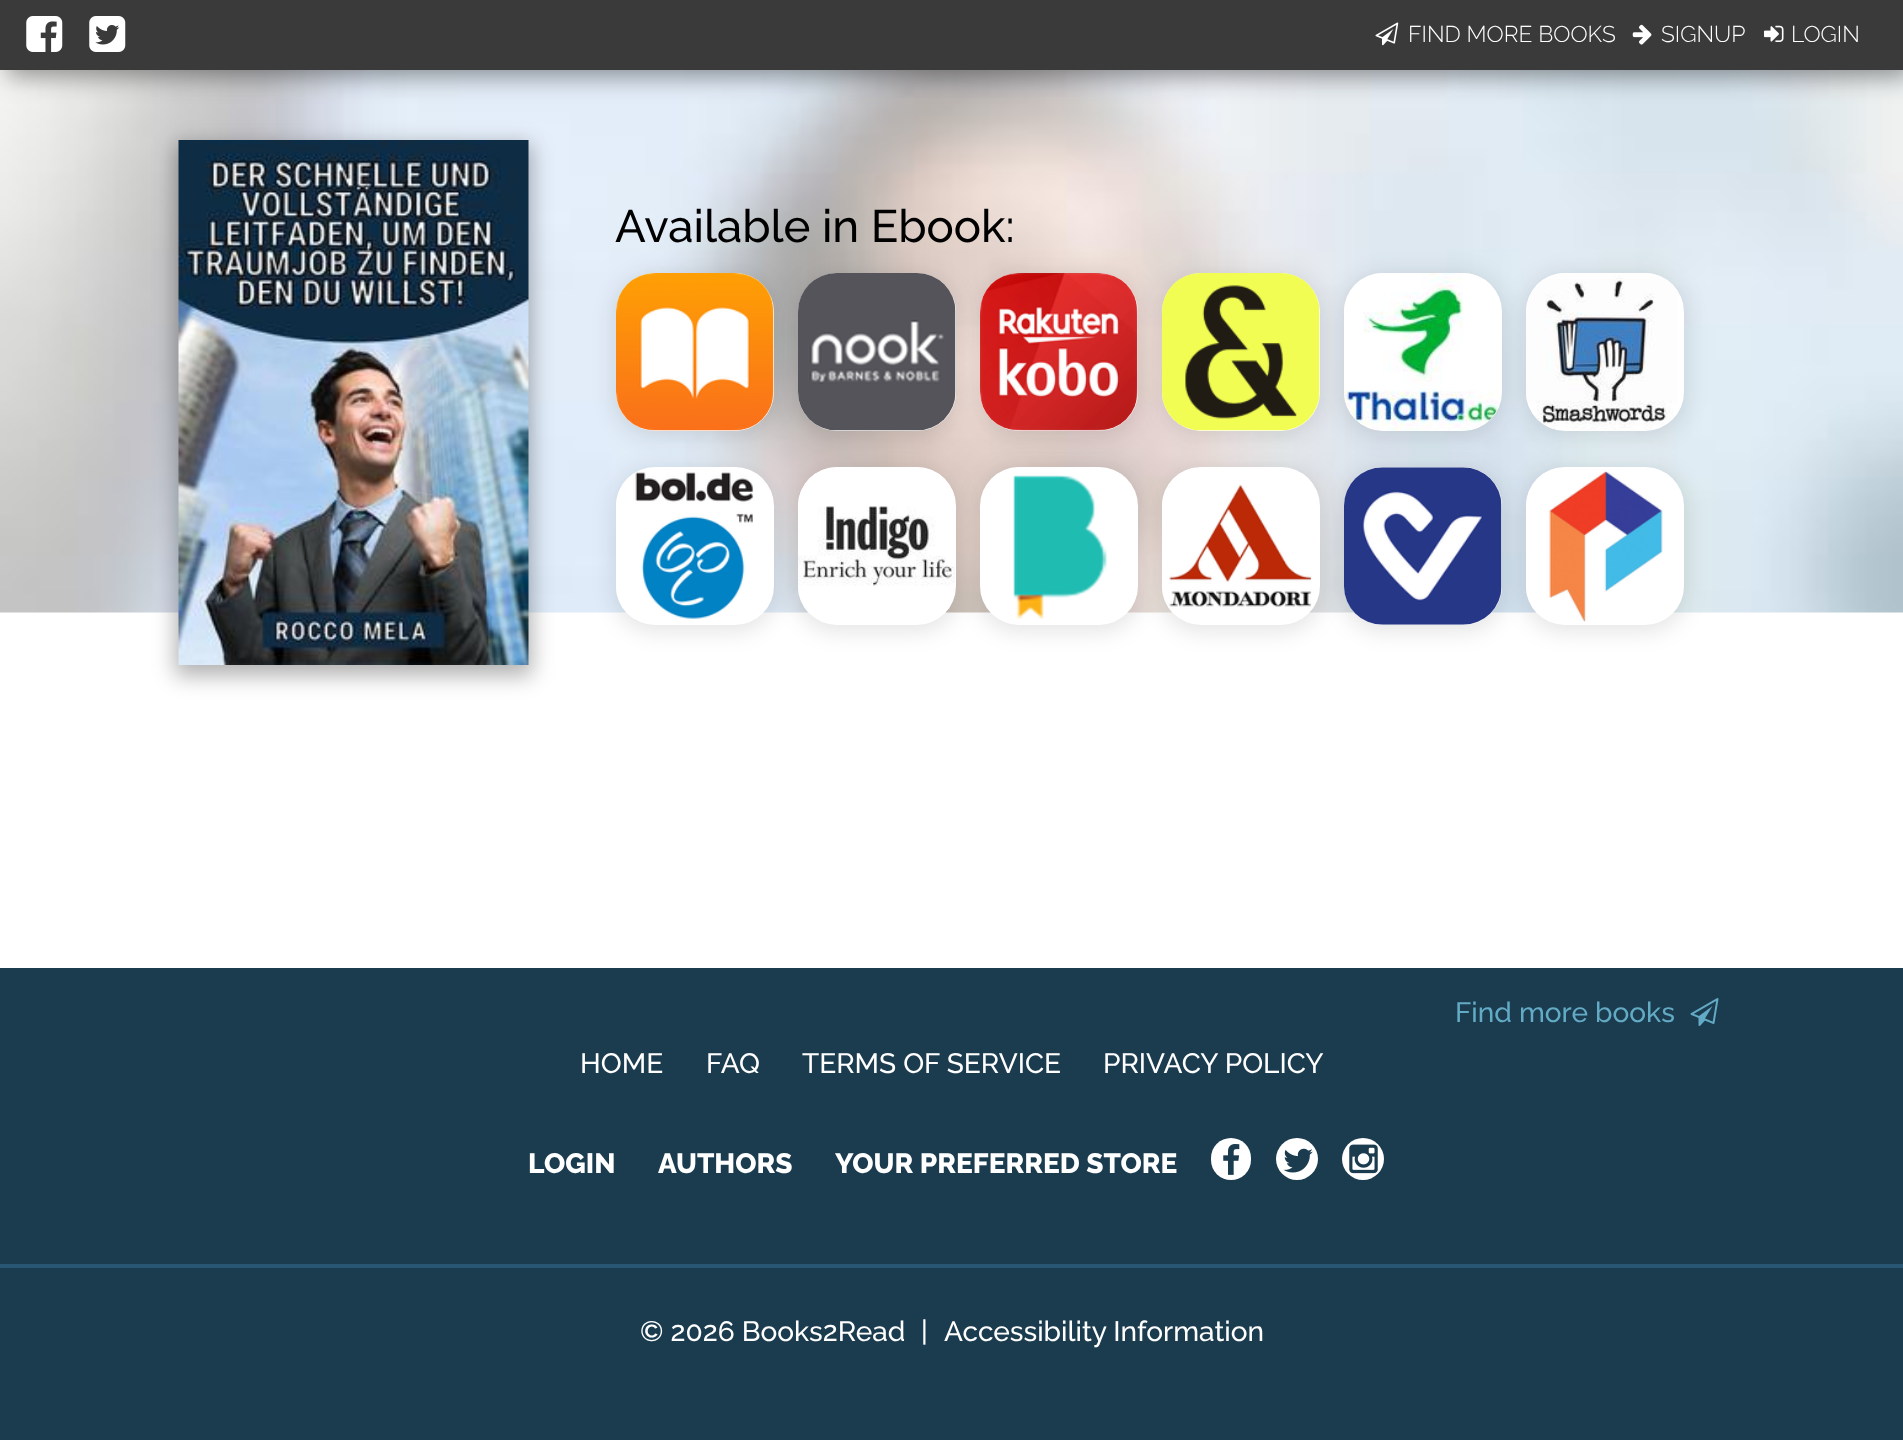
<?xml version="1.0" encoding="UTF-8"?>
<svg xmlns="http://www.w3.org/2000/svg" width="1903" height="1440">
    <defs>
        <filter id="blur1" x="-50%" y="-200%" width="200%" height="500%"><feGaussianBlur stdDeviation="12"/></filter>
        <filter id="blur2" x="-50%" y="-200%" width="200%" height="500%"><feGaussianBlur stdDeviation="10.5"/></filter>
    </defs>
    <rect width="100%" height="100%" fill="#FFFFFF"/>
    <image x="0" y="70" width="1903" height="543" href="img_01.png"/>
    <rect x="7" y="7" width="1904" height="70" fill="#000000" fill-opacity="0.4" filter="url(#blur1)"/>
    <rect x="0" y="0" width="1903" height="70" fill="#3A3A3A"/>
    <image x="26" y="16" width="37" height="36" href="img_02.png"/>
    <image x="89" y="16" width="37" height="36" href="img_03.png"/>
    <image x="1375" y="22" width="24" height="24" href="img_04.png"/>
    <text x="1408" y="42" font-family="Raleway" font-size="22.75" font-weight="300" fill="#FFFFFF">FIND MORE BOOKS</text>
    <image x="1632" y="24" width="20" height="21" href="img_05.png"/>
    <text x="1661" y="42" font-family="Raleway" font-size="22.75" font-weight="300" fill="#FFFFFF">SIGNUP</text>
    <image x="1764" y="25" width="20" height="17" href="img_06.png"/>
    <text x="1791" y="42" font-family="Raleway" font-size="22.75" font-weight="300" fill="#FFFFFF">LOGIN</text>
    <rect x="175" y="144" width="357" height="532" fill="#000000" fill-opacity="0.3" filter="url(#blur2)"/>
    <image x="178" y="140" width="351" height="525" href="img_07.png"/>
    <rect x="613" y="273" width="164" height="165" rx="42" fill="#000000" fill-opacity="0.1" filter="url(#blur2)"/>
    <rect x="616" y="273" width="158" height="158" rx="39" fill="#FFFFFF"/>
    <image x="616" y="273" width="158" height="158" href="img_08.png"/>
    <rect x="795" y="273" width="164" height="165" rx="42" fill="#000000" fill-opacity="0.1" filter="url(#blur2)"/>
    <rect x="798" y="273" width="158" height="158" rx="39" fill="#FFFFFF"/>
    <image x="798" y="273" width="158" height="158" href="img_09.png"/>
    <rect x="977" y="273" width="164" height="165" rx="42" fill="#000000" fill-opacity="0.1" filter="url(#blur2)"/>
    <text x="615" y="242" font-family="Raleway" font-size="45.5" font-weight="500" fill="#000000">Available in Ebook:</text>
    <rect x="980" y="273" width="158" height="158" rx="39" fill="#FFFFFF"/>
    <image x="980" y="273" width="158" height="158" href="img_10.png"/>
    <rect x="1159" y="273" width="164" height="165" rx="42" fill="#000000" fill-opacity="0.1" filter="url(#blur2)"/>
    <rect x="1162" y="273" width="158" height="158" rx="39" fill="#FFFFFF"/>
    <image x="1162" y="273" width="158" height="158" href="img_11.png"/>
    <rect x="1341" y="273" width="164" height="165" rx="42" fill="#000000" fill-opacity="0.1" filter="url(#blur2)"/>
    <rect x="1344" y="273" width="158" height="158" rx="39" fill="#FFFFFF"/>
    <image x="1344" y="273" width="157" height="158" href="img_12.png"/>
    <rect x="1523" y="273" width="164" height="165" rx="42" fill="#000000" fill-opacity="0.1" filter="url(#blur2)"/>
    <rect x="1526" y="273" width="158" height="158" rx="39" fill="#FFFFFF"/>
    <image x="1526" y="273" width="152" height="157" href="img_13.png"/>
    <rect x="613" y="467" width="164" height="165" rx="42" fill="#000000" fill-opacity="0.1" filter="url(#blur2)"/>
    <rect x="616" y="467" width="158" height="158" rx="39" fill="#FFFFFF"/>
    <image x="616" y="469" width="147" height="150" href="img_17.png"/>
    <rect x="795" y="467" width="164" height="165" rx="42" fill="#000000" fill-opacity="0.1" filter="url(#blur2)"/>
    <rect x="798" y="467" width="158" height="158" rx="39" fill="#FFFFFF"/>
    <image x="798" y="467" width="157" height="146" href="img_14.png"/>
    <rect x="977" y="467" width="164" height="165" rx="42" fill="#000000" fill-opacity="0.1" filter="url(#blur2)"/>
    <rect x="980" y="467" width="158" height="158" rx="39" fill="#FFFFFF"/>
    <rect x="1159" y="467" width="164" height="165" rx="42" fill="#000000" fill-opacity="0.1" filter="url(#blur2)"/>
    <rect x="1162" y="467" width="158" height="158" rx="39" fill="#FFFFFF"/>
    <image x="1162" y="468" width="150" height="145" href="img_15.png"/>
    <rect x="1341" y="467" width="164" height="165" rx="42" fill="#000000" fill-opacity="0.1" filter="url(#blur2)"/>
    <rect x="1344" y="467" width="158" height="158" rx="39" fill="#FFFFFF"/>
    <image x="1344" y="467" width="158" height="158" href="img_16.png"/>
    <rect x="1523" y="467" width="164" height="165" rx="42" fill="#000000" fill-opacity="0.1" filter="url(#blur2)"/>
    <rect x="1526" y="467" width="158" height="158" rx="39" fill="#FFFFFF"/>
    <image x="1013" y="475" width="94" height="144" href="img_18.png"/>
    <image x="1526" y="468" width="147" height="154" href="img_19.png"/>
    <rect x="0" y="968" width="1903" height="472" fill="#1B3B4F"/>
    <text x="1455" y="1022" font-family="Raleway" font-size="28" font-weight="500" fill="#63AAC5">Find more books</text>
    <image x="1690" y="998" width="29" height="28" href="img_20.png"/>
    <text x="580" y="1073" font-family="Raleway" font-size="28" font-weight="500" fill="#FFFFFF">HOME</text>
    <text x="706" y="1073" font-family="Raleway" font-size="28" font-weight="500" fill="#FFFFFF">FAQ</text>
    <text x="802" y="1073" font-family="Raleway" font-size="28" font-weight="500" fill="#FFFFFF">TERMS OF SERVICE</text>
    <text x="1103" y="1073" font-family="Raleway" font-size="28" font-weight="500" fill="#FFFFFF">PRIVACY POLICY</text>
    <text x="528" y="1173" font-family="Raleway" font-size="28" font-weight="800" fill="#FFFFFF">LOGIN</text>
    <text x="658" y="1173" font-family="Raleway" font-size="28" font-weight="800" fill="#FFFFFF">AUTHORS</text>
    <text x="835" y="1173" font-family="Raleway" font-size="28" font-weight="800" fill="#FFFFFF">YOUR PREFERRED STORE</text>
    <rect x="1211" y="1138" width="40" height="42" rx="20" fill="#FFFFFF"/>
    <image x="1223" y="1144" width="17" height="31" href="img_21.png"/>
    <circle cx="1297" cy="1159" r="21" fill="#FFFFFF"/>
    <image x="1283" y="1148" width="30" height="25" href="img_22.png"/>
    <circle cx="1363" cy="1159" r="21" fill="#FFFFFF"/>
    <image x="1349" y="1144" width="29" height="30" href="img_23.png"/>
    <rect x="0" y="1264" width="1903" height="4" fill="#285775"/>
    <text x="640" y="1341" font-family="Raleway" font-size="28" font-weight="500" fill="#FFFFFF">© 2026 Books2Read</text>
    <text x="921" y="1341" font-family="Raleway" font-size="28" font-weight="500" fill="#FFFFFF">|</text>
    <text x="944" y="1341" font-family="Raleway" font-size="28" font-weight="500" fill="#FFFFFF">Accessibility Information</text>
</svg>
